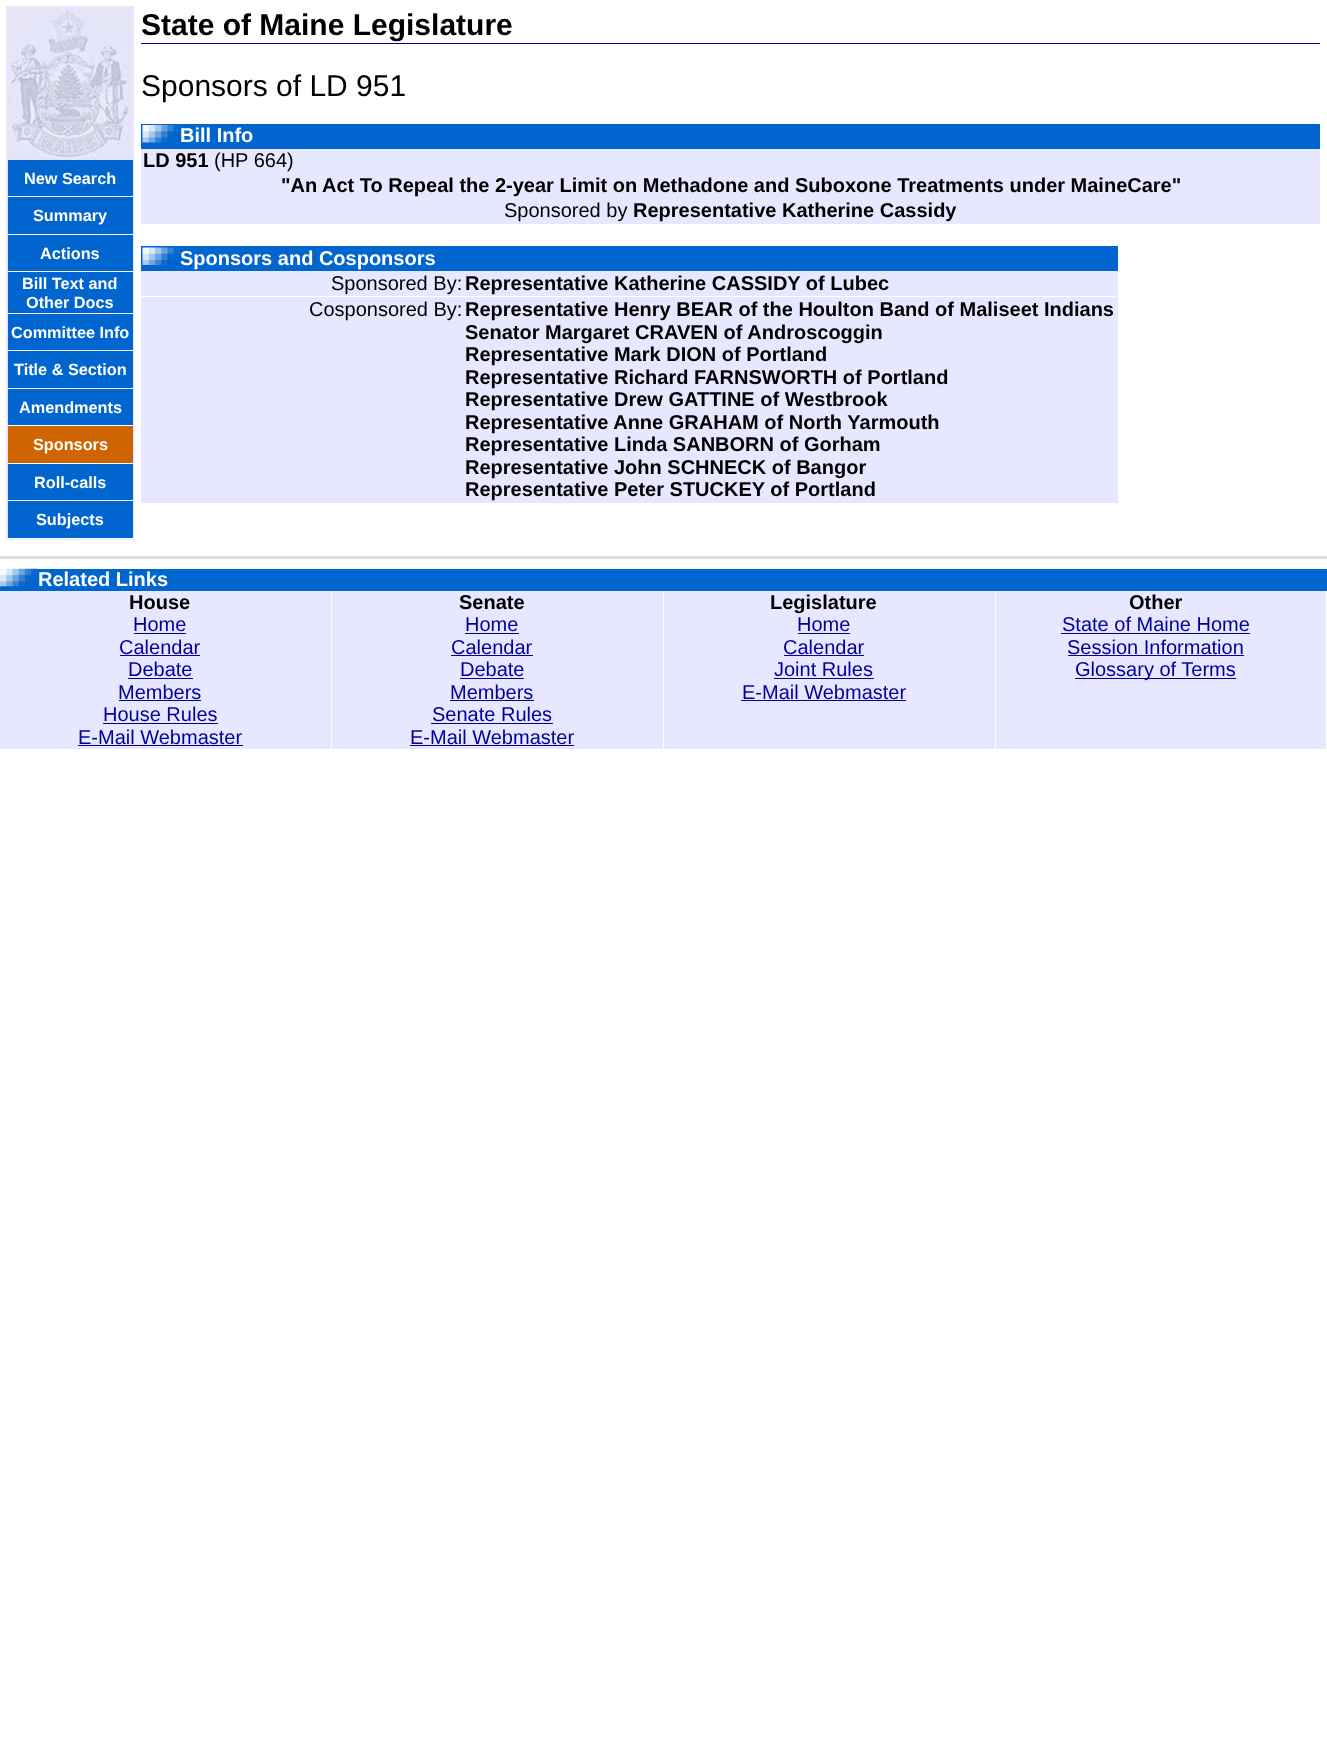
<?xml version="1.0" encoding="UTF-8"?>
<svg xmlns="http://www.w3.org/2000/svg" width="1327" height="1747">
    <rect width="100%" height="100%" fill="#FFFFFF"/>
    <rect x="6" y="6" width="128" height="534" fill="#E7E7FF"/>
    <image x="7" y="7" width="126" height="153" href="img_01.png"/>
    <rect x="8" y="160" width="125" height="378" fill="#0065CE"/>
    <rect x="8" y="196" width="125" height="1" fill="#FFFFFF"/>
    <text x="24" y="184" font-family="Liberation Sans" font-size="16.25" font-weight="700" fill="#FFFFFF">New Search</text>
    <rect x="8" y="234" width="125" height="1" fill="#FFFFFF"/>
    <text x="33" y="221" font-family="Liberation Sans" font-size="16.25" font-weight="700" fill="#FFFFFF">Summary</text>
    <rect x="8" y="271" width="125" height="1" fill="#FFFFFF"/>
    <text x="40" y="259" font-family="Liberation Sans" font-size="16.25" font-weight="700" fill="#FFFFFF">Actions</text>
    <rect x="8" y="313" width="125" height="1" fill="#FFFFFF"/>
    <text x="22" y="289" font-family="Liberation Sans" font-size="16.25" font-weight="700" fill="#FFFFFF">Bill Text and</text>
    <text x="26" y="308" font-family="Liberation Sans" font-size="16.25" font-weight="700" fill="#FFFFFF">Other Docs</text>
    <rect x="8" y="350" width="125" height="1" fill="#FFFFFF"/>
    <text x="11" y="338" font-family="Liberation Sans" font-size="16.25" font-weight="700" fill="#FFFFFF">Committee Info</text>
    <rect x="8" y="388" width="125" height="1" fill="#FFFFFF"/>
    <text x="14" y="375" font-family="Liberation Sans" font-size="16.25" font-weight="700" fill="#FFFFFF">Title &amp; Section</text>
    <rect x="8" y="425" width="125" height="1" fill="#FFFFFF"/>
    <text x="19" y="413" font-family="Liberation Sans" font-size="16.25" font-weight="700" fill="#FFFFFF">Amendments</text>
    <rect x="8" y="426" width="125" height="37" fill="#CE6500"/>
    <rect x="8" y="463" width="125" height="1" fill="#FFFFFF"/>
    <text x="33" y="450" font-family="Liberation Sans" font-size="16.25" font-weight="700" fill="#FFFFFF">Sponsors</text>
    <rect x="8" y="500" width="125" height="1" fill="#FFFFFF"/>
    <text x="34" y="488" font-family="Liberation Sans" font-size="16.25" font-weight="700" fill="#FFFFFF">Roll-calls</text>
    <rect x="8" y="538" width="125" height="1" fill="#FFFFFF"/>
    <text x="36" y="525" font-family="Liberation Sans" font-size="16.25" font-weight="700" fill="#FFFFFF">Subjects</text>
    <rect x="141" y="43" width="1179" height="1" fill="#00009C"/>
    <text x="141" y="35" font-family="Liberation Sans" font-size="30" font-weight="700" fill="#000000">State of Maine Legislature</text>
    <text x="141" y="96" font-family="Liberation Sans" font-size="30" fill="#000000">Sponsors of LD 951</text>
    <rect x="141" y="124" width="1179" height="25" fill="#0065CE"/>
    <image x="142" y="125" width="38" height="18" href="img_02.png"/>
    <text x="180" y="142" font-family="Liberation Sans" font-size="20" font-weight="700" fill="#FFFFFF">Bill Info</text>
    <rect x="141" y="149" width="1179" height="75" fill="#E7E7FF"/>
    <text x="143" y="167" font-family="Liberation Sans" font-size="20" font-weight="700" fill="#000000">LD 951</text>
    <text x="214" y="167" font-family="Liberation Sans" font-size="20" fill="#000000">(HP 664)</text>
    <text x="281" y="192" font-family="Liberation Sans" font-size="20" font-weight="700" fill="#000000">"An Act To Repeal the 2-year Limit on Methadone and Suboxone Treatments under MaineCare"</text>
    <text x="504" y="217" font-family="Liberation Sans" font-size="20" fill="#000000">Sponsored by</text>
    <text x="633" y="217" font-family="Liberation Sans" font-size="20" font-weight="700" fill="#000000">Representative Katherine Cassidy</text>
    <rect x="141" y="271" width="977" height="232" fill="#E7E7FF"/>
    <rect x="141" y="246" width="977" height="25" fill="#0065CE"/>
    <image x="142" y="247" width="38" height="18" href="img_03.png"/>
    <text x="180" y="265" font-family="Liberation Sans" font-size="20" font-weight="700" fill="#FFFFFF">Sponsors and Cosponsors</text>
    <rect x="141" y="296" width="974" height="1" fill="#FFFFFF"/>
    <text x="331" y="290" font-family="Liberation Sans" font-size="20" fill="#000000">Sponsored By:</text>
    <text x="465" y="290" font-family="Liberation Sans" font-size="20" font-weight="700" fill="#000000">Representative Katherine CASSIDY of Lubec</text>
    <text x="309" y="316" font-family="Liberation Sans" font-size="20" fill="#000000">Cosponsored By:</text>
    <text font-family="Liberation Sans" font-size="20" font-weight="700" fill="#000000">
        <tspan x="465" y="316">Representative Henry BEAR of the Houlton Band of Maliseet Indians</tspan>
        <tspan x="465" y="339">Senator Margaret CRAVEN of Androscoggin</tspan>
        <tspan x="465" y="361">Representative Mark DION of Portland</tspan>
        <tspan x="465" y="384">Representative Richard FARNSWORTH of Portland</tspan>
        <tspan x="465" y="406">Representative Drew GATTINE of Westbrook</tspan>
        <tspan x="465" y="429">Representative Anne GRAHAM of North Yarmouth</tspan>
        <tspan x="465" y="451">Representative Linda SANBORN of Gorham</tspan>
        <tspan x="465" y="474">Representative John SCHNECK of Bangor</tspan>
        <tspan x="465" y="496">Representative Peter STUCKEY of Portland</tspan>
    </text>
    <rect x="0" y="556" width="1327" height="3" fill="#DDDDDD"/>
    <rect x="0" y="591" width="1326" height="158" fill="#E7E7FF"/>
    <rect x="0" y="569" width="1327" height="22" fill="#0065CE"/>
    <image x="0" y="568" width="38" height="19" href="img_04.png"/>
    <text x="38" y="586" font-family="Liberation Sans" font-size="20" font-weight="700" fill="#FFFFFF">Related Links</text>
    <rect x="331" y="591" width="1" height="158" fill="#FFFFFF"/>
    <text x="129" y="609" font-family="Liberation Sans" font-size="20" font-weight="700" fill="#000000">House</text>
    <rect x="663" y="591" width="1" height="158" fill="#FFFFFF"/>
    <text x="459" y="609" font-family="Liberation Sans" font-size="20" font-weight="700" fill="#000000">Senate</text>
    <rect x="995" y="591" width="1" height="158" fill="#FFFFFF"/>
    <text x="770" y="609" font-family="Liberation Sans" font-size="20" font-weight="700" fill="#000000">Legislature</text>
    <text x="1129" y="609" font-family="Liberation Sans" font-size="20" font-weight="700" fill="#000000">Other</text>
    <text x="133" y="631" font-family="Liberation Sans" font-size="20" fill="#00009C">Home</text>
    <rect x="134" y="633" width="52" height="1" fill="#00009C"/>
    <text x="119" y="654" font-family="Liberation Sans" font-size="20" fill="#00009C">Calendar</text>
    <rect x="120" y="655" width="80" height="1" fill="#00009C"/>
    <text x="128" y="676" font-family="Liberation Sans" font-size="20" fill="#00009C">Debate</text>
    <rect x="128" y="678" width="65" height="1" fill="#00009C"/>
    <text x="118" y="699" font-family="Liberation Sans" font-size="20" fill="#00009C">Members</text>
    <rect x="119" y="700" width="82" height="1" fill="#00009C"/>
    <text x="103" y="721" font-family="Liberation Sans" font-size="20" fill="#00009C">House Rules</text>
    <rect x="103" y="723" width="115" height="1" fill="#00009C"/>
    <text x="78" y="744" font-family="Liberation Sans" font-size="20" fill="#00009C">E-Mail Webmaster</text>
    <rect x="78" y="745" width="165" height="1" fill="#00009C"/>
    <text x="465" y="631" font-family="Liberation Sans" font-size="20" fill="#00009C">Home</text>
    <rect x="465" y="633" width="54" height="1" fill="#00009C"/>
    <text x="451" y="654" font-family="Liberation Sans" font-size="20" fill="#00009C">Calendar</text>
    <rect x="451" y="655" width="82" height="1" fill="#00009C"/>
    <text x="460" y="676" font-family="Liberation Sans" font-size="20" fill="#00009C">Debate</text>
    <rect x="460" y="678" width="64" height="1" fill="#00009C"/>
    <text x="450" y="699" font-family="Liberation Sans" font-size="20" fill="#00009C">Members</text>
    <rect x="450" y="700" width="84" height="1" fill="#00009C"/>
    <text x="432" y="721" font-family="Liberation Sans" font-size="20" fill="#00009C">Senate Rules</text>
    <rect x="431" y="723" width="122" height="1" fill="#00009C"/>
    <text x="410" y="744" font-family="Liberation Sans" font-size="20" fill="#00009C">E-Mail Webmaster</text>
    <rect x="410" y="745" width="164" height="1" fill="#00009C"/>
    <text x="797" y="631" font-family="Liberation Sans" font-size="20" fill="#00009C">Home</text>
    <rect x="798" y="633" width="52" height="1" fill="#00009C"/>
    <text x="783" y="654" font-family="Liberation Sans" font-size="20" fill="#00009C">Calendar</text>
    <rect x="784" y="655" width="80" height="1" fill="#00009C"/>
    <text x="774" y="676" font-family="Liberation Sans" font-size="20" fill="#00009C">Joint Rules</text>
    <rect x="774" y="678" width="100" height="1" fill="#00009C"/>
    <text x="742" y="699" font-family="Liberation Sans" font-size="20" fill="#00009C">E-Mail Webmaster</text>
    <rect x="741" y="700" width="165" height="1" fill="#00009C"/>
    <text x="1062" y="631" font-family="Liberation Sans" font-size="20" fill="#00009C">State of Maine Home</text>
    <rect x="1061" y="633" width="189" height="1" fill="#00009C"/>
    <text x="1067" y="654" font-family="Liberation Sans" font-size="20" fill="#00009C">Session Information</text>
    <rect x="1068" y="655" width="176" height="1" fill="#00009C"/>
    <rect x="1075" y="678" width="161" height="1" fill="#00009C"/>
    <text x="1075" y="676" font-family="Liberation Sans" font-size="20" fill="#00009C">Glossary of Terms</text>
</svg>
